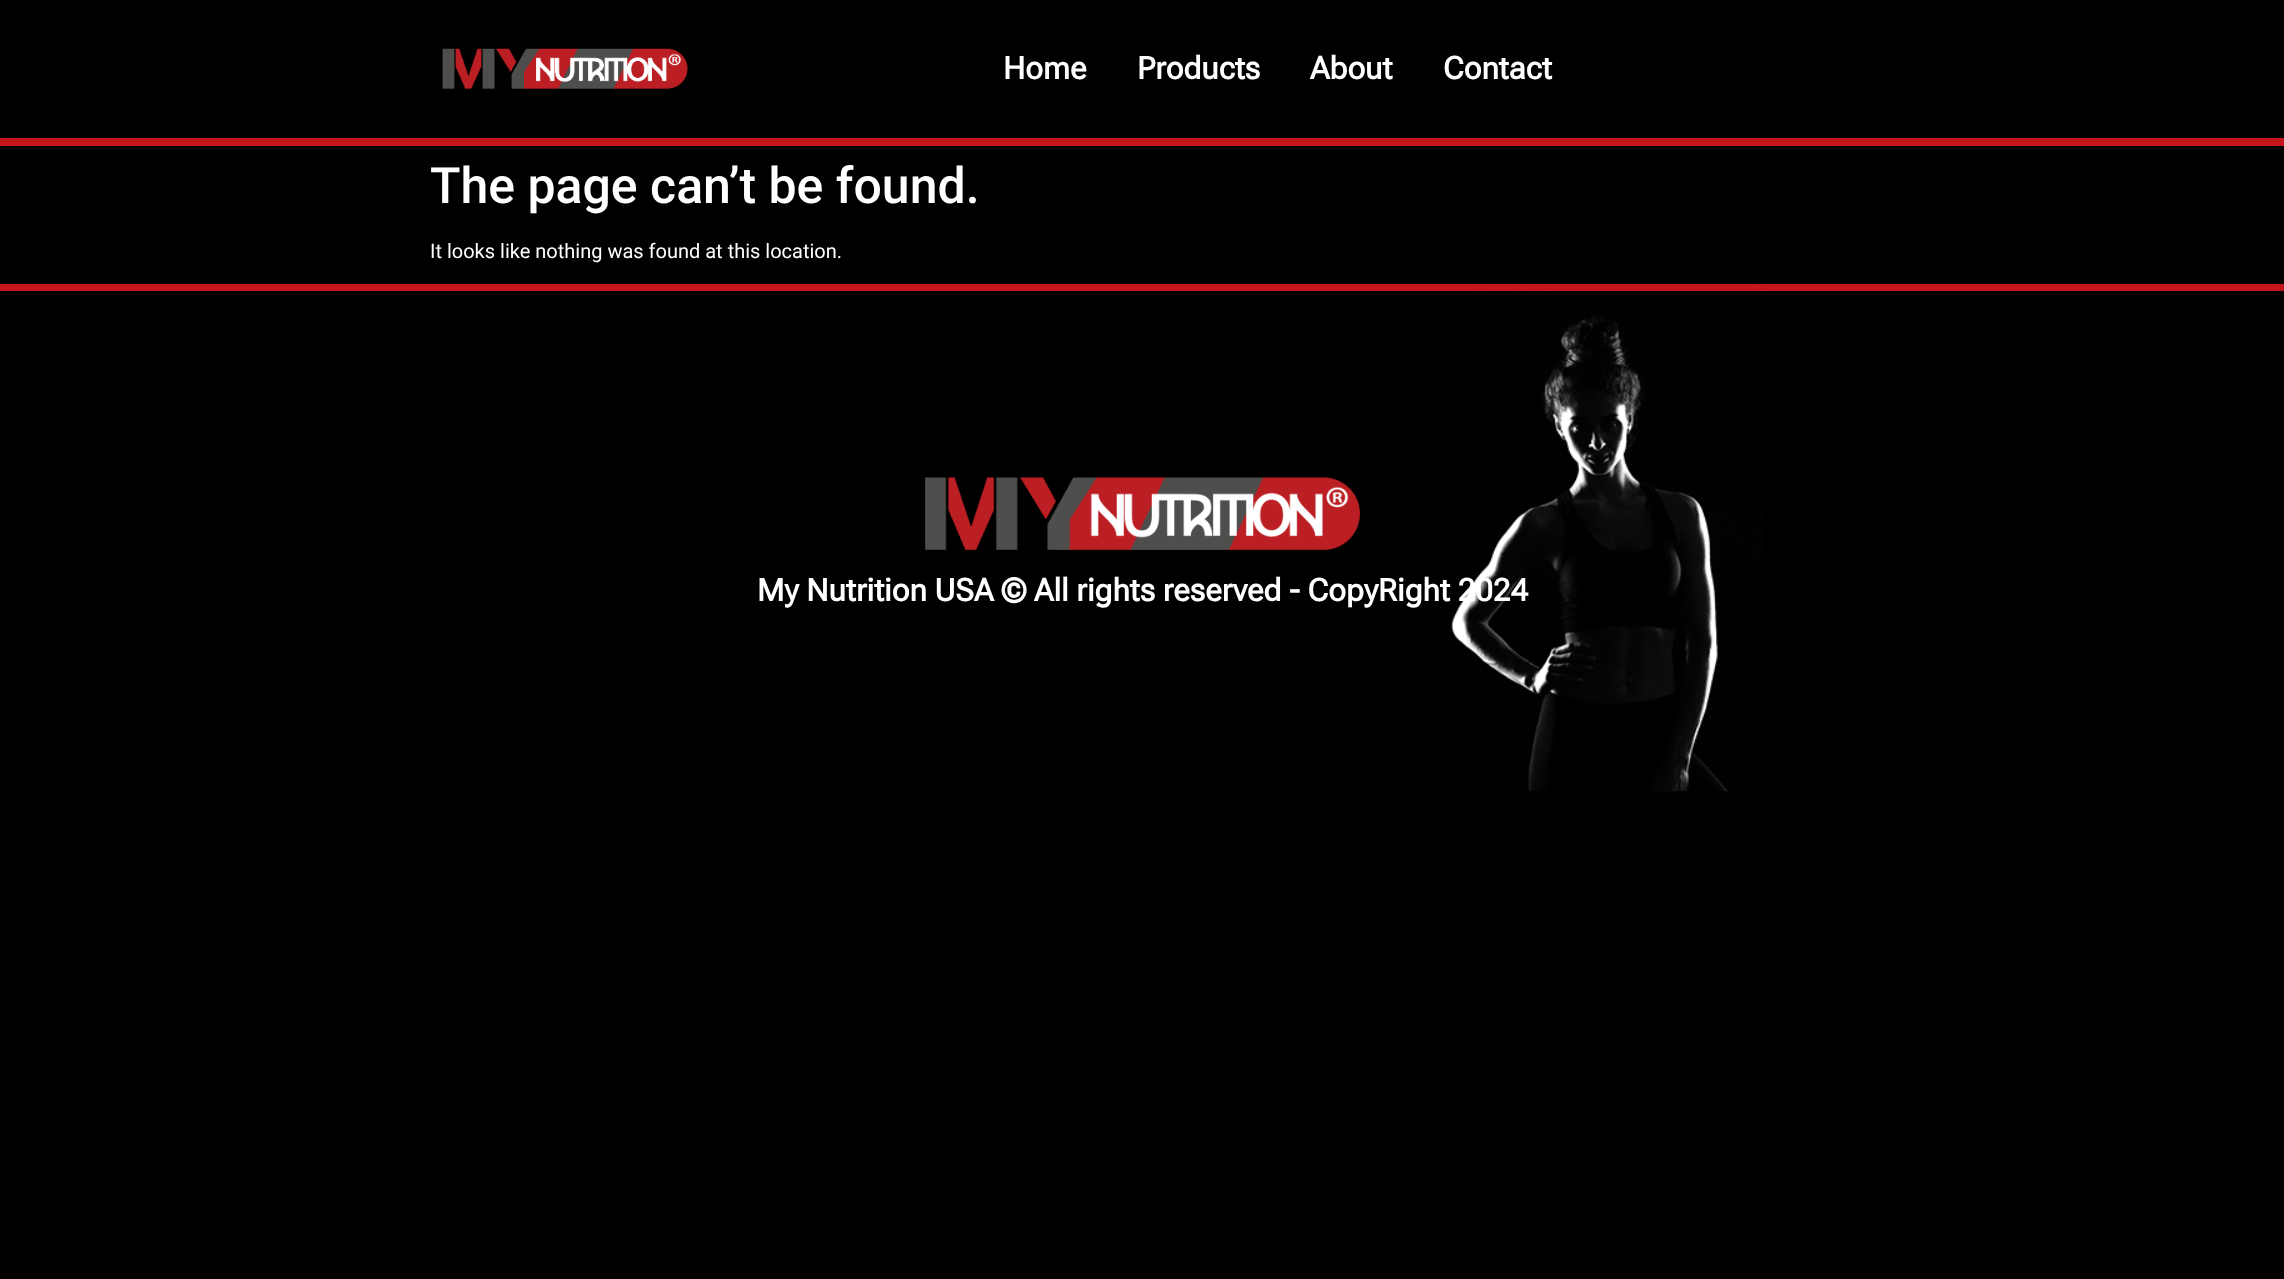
<?xml version="1.0" encoding="UTF-8"?>
<svg xmlns="http://www.w3.org/2000/svg" width="2284" height="1279">
    <rect width="100%" height="100%" fill="#000000"/>
    <rect x="0" y="138" width="2284" height="8" fill="#C4161C"/>
    <image x="442" y="48" width="246" height="41" href="img_01.png"/>
    <text x="1003" y="79" font-family="Roboto Flex" font-size="31.25" font-weight="700" fill="#FFFFFF">Home</text>
    <text x="1137" y="79" font-family="Roboto Flex" font-size="31.25" font-weight="700" fill="#FFFFFF">Products</text>
    <text x="1310" y="79" font-family="Roboto Flex" font-size="31.25" font-weight="700" fill="#FFFFFF">About</text>
    <text x="1443" y="79" font-family="Roboto Flex" font-size="31.25" font-weight="700" fill="#FFFFFF">Contact</text>
    <text x="430" y="203" font-family="Roboto" font-size="50" font-weight="500" fill="#FFFFFF">The page can’t be found.</text>
    <text x="430" y="258" font-family="Roboto" font-size="20" fill="#FFFFFF">It looks like nothing was found at this location.</text>
    <image x="1451" y="283" width="312" height="509" href="img_02.png"/>
    <rect x="0" y="284" width="2284" height="7" fill="#C4161C"/>
    <image x="925" y="477" width="435" height="73" href="img_03.png"/>
    <text x="757" y="601" font-family="Roboto Flex" font-size="31.25" font-weight="700" fill="#FFFFFF">My Nutrition USA © All rights reserved - CopyRight 2024</text>
</svg>
